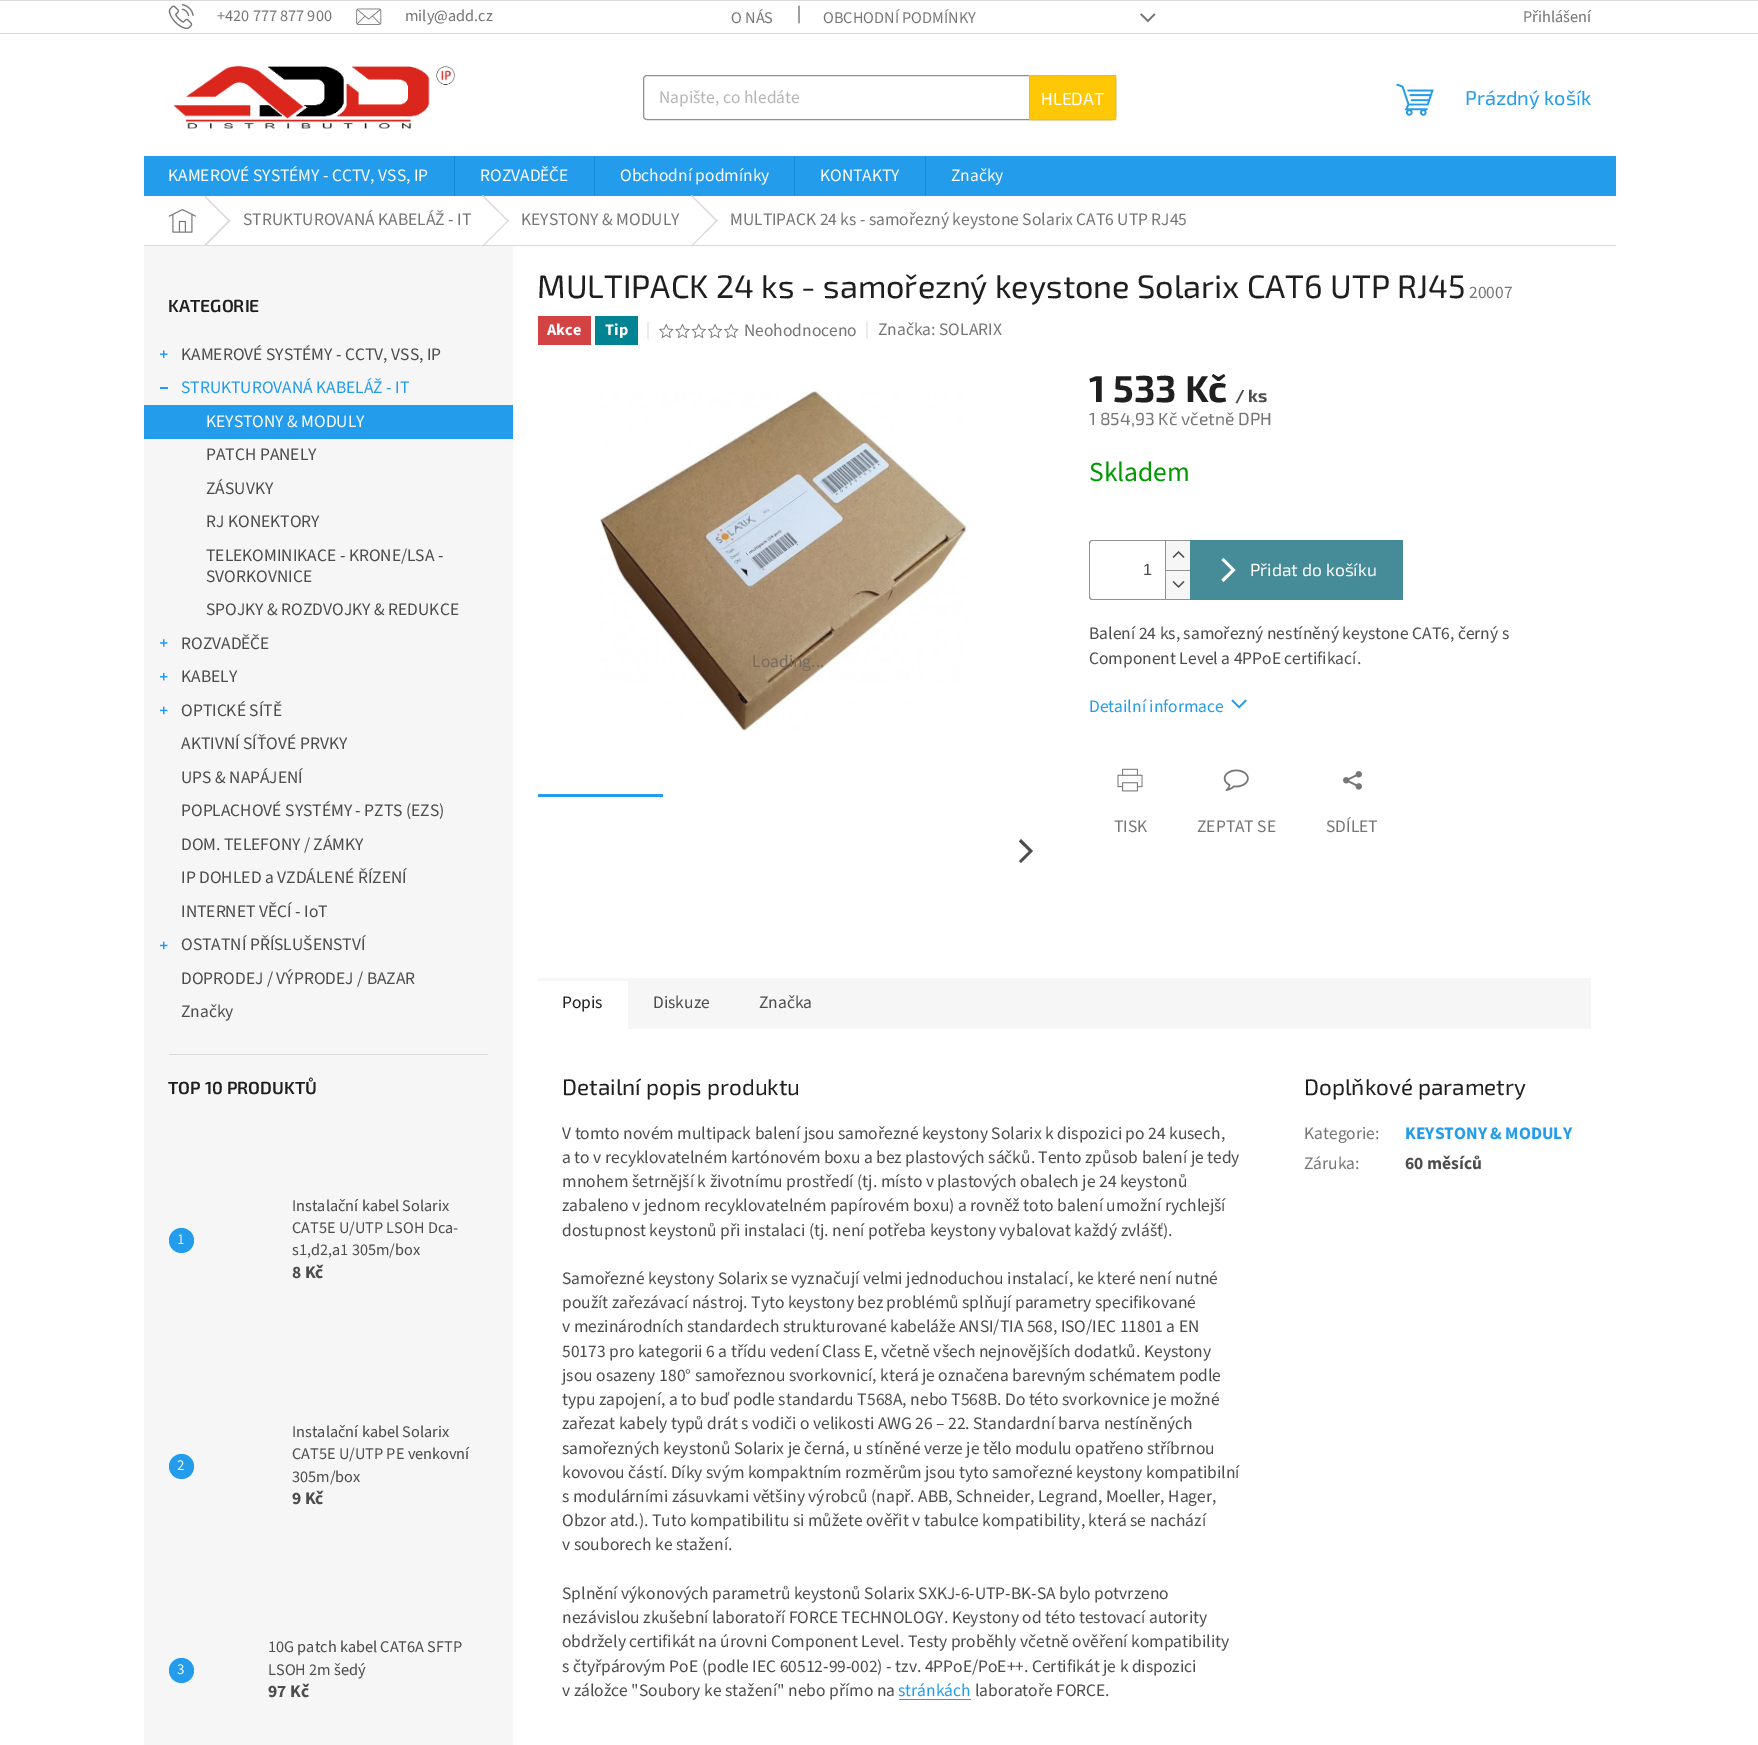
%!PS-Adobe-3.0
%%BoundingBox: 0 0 1758 1745
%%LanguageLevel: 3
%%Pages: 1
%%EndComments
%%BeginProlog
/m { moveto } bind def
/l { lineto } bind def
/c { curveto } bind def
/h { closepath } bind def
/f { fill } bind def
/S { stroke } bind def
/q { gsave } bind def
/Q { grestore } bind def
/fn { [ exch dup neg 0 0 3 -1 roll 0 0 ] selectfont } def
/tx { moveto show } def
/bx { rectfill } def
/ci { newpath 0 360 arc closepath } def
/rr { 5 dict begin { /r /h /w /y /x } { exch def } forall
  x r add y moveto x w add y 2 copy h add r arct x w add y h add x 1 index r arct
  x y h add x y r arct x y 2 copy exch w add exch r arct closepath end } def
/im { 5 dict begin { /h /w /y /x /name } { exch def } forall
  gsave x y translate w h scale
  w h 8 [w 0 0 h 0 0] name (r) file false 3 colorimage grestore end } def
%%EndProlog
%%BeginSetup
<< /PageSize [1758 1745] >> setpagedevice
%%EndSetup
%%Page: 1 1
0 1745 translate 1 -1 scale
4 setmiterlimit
1 setgray
0 0 1758 1745 bx
0.855 setgray
0 0 1758 1 bx
0 33 1758 1 bx
(image0.raw) 168 4 26 26 im
/SourceSans3-Regular 16.25 fn
0.463 setgray
(+420 777 877 900) 217 21 tx
(image1.raw) 356 8 26 17 im
(mily@add.cz) 405 21 tx
(O NÁS) 731 23 tx
/SourceSans3-Regular 17.5 fn
0.302 setgray
(|) 797 19 tx
/SourceSans3-Regular 16.25 fn
0.463 setgray
(OBCHODNÍ PODMÍNKY) 823 23 tx
(image2.raw) 1140 13 16 10 im
(Přihlášení) 1523 22 tx
(image3.raw) 173 66 282 63 im
0.569 setgray
643.5 75.5 472 44 3.5 rr S
/SourceSans3-Regular 17.5 fn
0.714 setgray
(Napište, co hledáte) 659 103 tx
1 0.784 0.027 setrgbcolor
1029.5 75.5 m 1115.5 75.5 l 1115.5 119.5 l 1029.5 119.5 l h q f Q
1 0.733 0 setrgbcolor
S
/Exo2-Regular 17.5 fn
1 setgray
(HLEDAT) 1041 105 tx
(image4.raw) 1396 83 38 33 im
/Exo2-Regular 20 fn
0.137 0.612 0.922 setrgbcolor
(Prázdný košík) 1465 105 tx
144 156 1472 40 bx
/SourceSans3-Regular 17.5 fn
1 setgray
(KAMEROVÉ SYSTÉMY - CCTV, VSS, IP) 168 181 tx
0.078 0.537 0.843 setrgbcolor
454 156 1 40 bx
1 setgray
(ROZVADĚČE) 480 181 tx
0.078 0.537 0.843 setrgbcolor
594 156 1 40 bx
1 setgray
(Obchodní podmínky) 620 181 tx
0.078 0.537 0.843 setrgbcolor
794 156 1 40 bx
1 setgray
(KONTAKTY) 820 181 tx
0.078 0.537 0.843 setrgbcolor
925 156 1 40 bx
1 setgray
(Značky) 951 181 tx
0.855 setgray
144 245 1472 1 bx
(image5.raw) 168 209 28 24 im
204.5 197 m 205.5 196 l 230.5 221 l 229.5 222 l h f
229.5 219.5 m 230.5 220.5 l 205.5 246 l 204.5 245 l h f
0.463 setgray
(STRUKTUROVANÁ KABELÁŽ - IT) 243 225 tx
0.855 setgray
482 196 m 483 195 l 509 221 l 508.5 222 l h f
0.965 setgray
144 246 369 1499 bx
0.855 setgray
508.5 219.5 m 509 220.5 l 483 246.5 l 482 246 l h f
0.463 setgray
(KEYSTONY & MODULY) 521 225 tx
0.855 setgray
691 196 m 691.5 195 l 718 221 l 717 222 l h f
717 219.5 m 718 220.5 l 691.5 246.5 l 691 246 l h f
0.463 setgray
(MULTIPACK 24 ks - samořezný keystone Solarix CAT6 UTP RJ45) 730 225 tx
0.855 setgray
169 1054 319 1 bx
/Exo2-SemiBold 17.5 fn
0.122 setgray
(KATEGORIE) 168 312 tx
(image6.raw) 160 350 8 8 im
/SourceSans3-Regular 17.5 fn
0.302 setgray
(KAMEROVÉ SYSTÉMY - CCTV, VSS, IP) 181 360 tx
0.137 0.612 0.922 setrgbcolor
160 387 8 2 bx
(STRUKTUROVANÁ KABELÁŽ - IT) 181 393 tx
144 405 369 34 bx
1 setgray
(KEYSTONY & MODULY) 206 427 tx
0.302 setgray
(PATCH PANELY) 206 460 tx
(ZÁSUVKY) 206 494 tx
(RJ KONEKTORY) 206 527 tx
(TELEKOMINIKACE - KRONE/LSA -) 206 561 tx
(SVORKOVNICE) 206 582 tx
(SPOJKY & ROZDVOJKY & REDUKCE) 206 615 tx
(image7.raw) 160 639 8 8 im
(ROZVADĚČE) 181 649 tx
(image8.raw) 160 672 8 9 im
(KABELY) 181 682 tx
(image9.raw) 160 706 8 9 im
(OPTICKÉ SÍTĚ) 181 716 tx
(AKTIVNÍ SÍŤOVÉ PRVKY) 181 749 tx
(UPS & NAPÁJENÍ) 181 783 tx
(POPLACHOVÉ SYSTÉMY - PZTS \(EZS\)) 181 816 tx
(DOM. TELEFONY / ZÁMKY) 181 850 tx
(IP DOHLED a VZDÁLENÉ ŘÍZENÍ) 181 883 tx
(INTERNET VĚCÍ - IoT) 181 917 tx
(image9.raw) 160 941 8 9 im
(OSTATNÍ PŘÍSLUŠENSTVÍ) 181 950 tx
(DOPRODEJ / VÝPRODEJ / BAZAR) 181 984 tx
(Značky) 181 1017 tx
/Exo2-SemiBold 17.5 fn
0.122 setgray
(TOP 10 PRODUKTŮ) 168 1094 tx
0.137 0.612 0.922 setrgbcolor
181.5 1240.5 12.5 ci f
/SourceSans3-Regular 15 fn
1 setgray
(1) 177 1244 tx
/SourceSans3-Regular 16.25 fn
0.302 setgray
(Instalační kabel Solarix) 292 1211 tx
(CAT5E U/UTP LSOH Dca-) 292 1233 tx
(s1,d2,a1 305m/box) 292 1255 tx
/SourceSans3-Bold 17.5 fn
(8 Kč) 292 1278 tx
0.137 0.612 0.922 setrgbcolor
181.5 1466.5 12.5 ci f
/SourceSans3-Regular 15 fn
1 setgray
(2) 177 1470 tx
/SourceSans3-Regular 16.25 fn
0.302 setgray
(Instalační kabel Solarix) 292 1437 tx
(CAT5E U/UTP PE venkovní) 292 1459 tx
(305m/box) 292 1482 tx
/SourceSans3-Bold 17.5 fn
(9 Kč) 292 1504 tx
0.137 0.612 0.922 setrgbcolor
181.5 1670.5 12.5 ci f
/SourceSans3-Regular 15 fn
1 setgray
(3) 177 1674 tx
/SourceSans3-Regular 16.25 fn
0.302 setgray
(10G patch kabel CAT6A SFTP) 268 1652 tx
(LSOH 2m šedý) 268 1675 tx
/SourceSans3-Bold 17.5 fn
(97 Kč) 268 1697 tx
/Exo2-Regular 32.5 fn
0.122 setgray
(MULTIPACK 24 ks - samořezný keystone Solarix CAT6 UTP RJ45) 537 298 tx
/SourceSans3-Regular 17.5 fn
0.463 setgray
(20007) 1469 298 tx
0.827 0.263 0.263 setrgbcolor
538 316 53 29 bx
/SourceSans3-Bold 16.25 fn
1 setgray
(Akce) 547 335 tx
0 0.514 0.573 setrgbcolor
595 316 43 29 bx
1 setgray
(Tip) 605 335 tx
/SourceSans3-Regular 17.5 fn
0.855 setgray
(|) 646 335 tx
(image10.raw) 658 323 16 16 im
(image11.raw) 675 323 15 16 im
(image12.raw) 691 323 16 16 im
(image13.raw) 707 323 16 16 im
(image10.raw) 723 323 16 16 im
0.463 setgray
(Neohodnoceno) 744 336 tx
0.855 setgray
(|) 865 335 tx
0.463 setgray
(Značka: SOLARIX) 878 335 tx
(image14.raw) 600 390 368 341 im
0.471 0.42 0.361 setrgbcolor
(Loading...) 752 667 tx
0.137 0.612 0.922 setrgbcolor
538 794 125 3 bx
0.302 setgray
1021 863 m 1019 861 l 1029 851 l 1019 841.5 l 1021 839 l 1033 851 l h f
/Exo2-Bold 37.5 fn
0.122 setgray
(1 533 Kč) 1089 402 tx
/Exo2-Bold 17.5 fn
0.302 setgray
(/ ks) 1235 402 tx
/Exo2-Regular 17.5 fn
0.463 setgray
(1 854,93 Kč včetně DPH) 1089 425 tx
/SourceSans3-Regular 27.5 fn
0 0.6 0.004 setrgbcolor
(Skladem) 1089 481 tx
0.569 setgray
1092 540 m 1190 540 l 1190 600 l 1092 600 l 1090 600 1089 598 1089 596 c 1089 544 l 1089 542 1090 540 1092 540 c h 1092 541 m 1190 541 l 1190 599 l 1092 599 l 1091 599 1090 598 1090 596 c 1090 544 l 1090 542 1091 541 1092 541 c h eofill
/LiberationSans-Regular 16.25 fn
0.302 setgray
(1) 1143 575 tx
0.965 setgray
1166 541 24 29 bx
0.569 setgray
1165 541 1 29 bx
(image15.raw) 1172 551 13 7 im
0.965 setgray
1166 571 24 28 bx
0.569 setgray
1165 570 25 1 bx
1165 570 1 29 bx
(image16.raw) 1172 581 13 7 im
0.275 0.549 0.596 setrgbcolor
1190 540 213 60 bx
1 setgray
1223.5 582 m 1221.5 579.5 l 1231.5 570 l 1221.5 560 l 1223.5 558 l 1235.5 570 l h f
/Exo2-Regular 17.5 fn
(Přidat do košíku) 1250 576 tx
/SourceSans3-Regular 17.5 fn
0.302 setgray
(Balení 24 ks, samořezný nestíněný keystone CAT6, černý s) 1089 639 tx
(Component Level a 4PPoE certifikací.) 1089 664 tx
0.137 0.612 0.922 setrgbcolor
(Detailní informace) 1089 712 tx
(image17.raw) 1231 699 16 10 im
(image18.raw) 1117 768 26 24 im
0.463 setgray
(TISK) 1114 832 tx
(image19.raw) 1223 769 26 22 im
(ZEPTAT SE) 1197 832 tx
(image20.raw) 1343 771 19 19 im
(SDÍLET) 1326 832 tx
0.965 setgray
628 978 963 51 bx
538 978 90 3 bx
0.122 setgray
(Popis) 562 1008 tx
0.302 setgray
(Diskuze) 653 1008 tx
(Značka) 759 1008 tx
/Exo2-Regular 22.5 fn
0.122 setgray
(Detailní popis produktu) 562 1095 tx
/SourceSans3-Regular 17.5 fn
0.302 setgray
(V tomto novém multipack balení jsou samořezné keystony Solarix k dispozici po 24 kusech,) 562 1139 tx
(a to v recyklovatelném kartónovém boxu a bez plastových sáčků. Tento způsob balení je tedy) 562 1163 tx
(mnohem šetrnější k životnímu prostředí \(tj. místo v plastových obalech je 24 keystonů) 562 1187 tx
(zabaleno v jednom recyklovatelném papírovém boxu\) a rovněž toto balení umožní rychlejší) 562 1211 tx
(dostupnost keystonů při instalaci \(tj. není potřeba keystony vybalovat každý zvlášť\).) 562 1236 tx
(Samořezné keystony Solarix se vyznačují velmi jednoduchou instalací, ke které není nutné) 562 1284 tx
(použít zařezávací nástroj. Tyto keystony bez problémů splňují parametry specifikované) 562 1308 tx
(v mezinárodních standardech strukturované kabeláže ANSI/TIA 568, ISO/IEC 11801 a EN) 562 1332 tx
(50173 pro kategorii 6 a třídu vedení Class E, včetně všech nejnovějších dodatků. Keystony) 562 1357 tx
(jsou osazeny 180° samořeznou svorkovnicí, která je označena barevným schématem podle) 562 1381 tx
(typu zapojení, a to buď podle standardu T568A, nebo T568B. Do této svorkovnice je možné) 562 1405 tx
(zařezat kabely typů drát s vodiči o velikosti AWG 26 – 22. Standardní barva nestíněných) 562 1429 tx
(samořezných keystonů Solarix je černá, u stíněné verze je tělo modulu opatřeno stříbrnou) 562 1454 tx
(kovovou částí. Díky svým kompaktním rozměrům jsou tyto samořezné keystony kompatibilní) 562 1478 tx
(s modulárními zásuvkami většiny výrobců \(např. ABB, Schneider, Legrand, Moeller, Hager,) 562 1502 tx
(Obzor atd.\). Tuto kompatibilitu si můžete ověřit v tabulce kompatibility, která se nachází) 562 1526 tx
(v souborech ke stažení.) 562 1550 tx
(Splnění výkonových parametrů keystonů Solarix SXKJ-6-UTP-BK-SA bylo potvrzeno) 562 1599 tx
(nezávislou zkušební laboratoří FORCE TECHNOLOGY. Keystony od této testovací autority) 562 1623 tx
(obdržely certifikát na úrovni Component Level. Testy proběhly včetně ověření kompatibility) 562 1647 tx
(s čtyřpárovým PoE \(podle IEC 60512-99-002\) - tzv. 4PPoE/PoE++. Certifikát je k dispozici) 562 1672 tx
(v záložce "Soubory ke stažení" nebo přímo na) 562 1696 tx
0.137 0.612 0.922 setrgbcolor
(stránkách) 898 1696 tx
899 1699 72 1 bx
0.302 setgray
(laboratoře FORCE.) 975 1696 tx
/Exo2-Regular 22.5 fn
0.122 setgray
(Doplňkové parametry) 1304 1095 tx
/SourceSans3-Regular 17.5 fn
0.463 setgray
(Kategorie:) 1304 1139 tx
/SourceSans3-Bold 17.5 fn
0.137 0.612 0.922 setrgbcolor
(KEYSTONY & MODULY) 1405 1139 tx
/SourceSans3-Regular 17.5 fn
0.463 setgray
(Záruka:) 1304 1169 tx
/SourceSans3-Bold 17.5 fn
0.302 setgray
(60 měsíců) 1405 1169 tx
showpage
%%EOF
